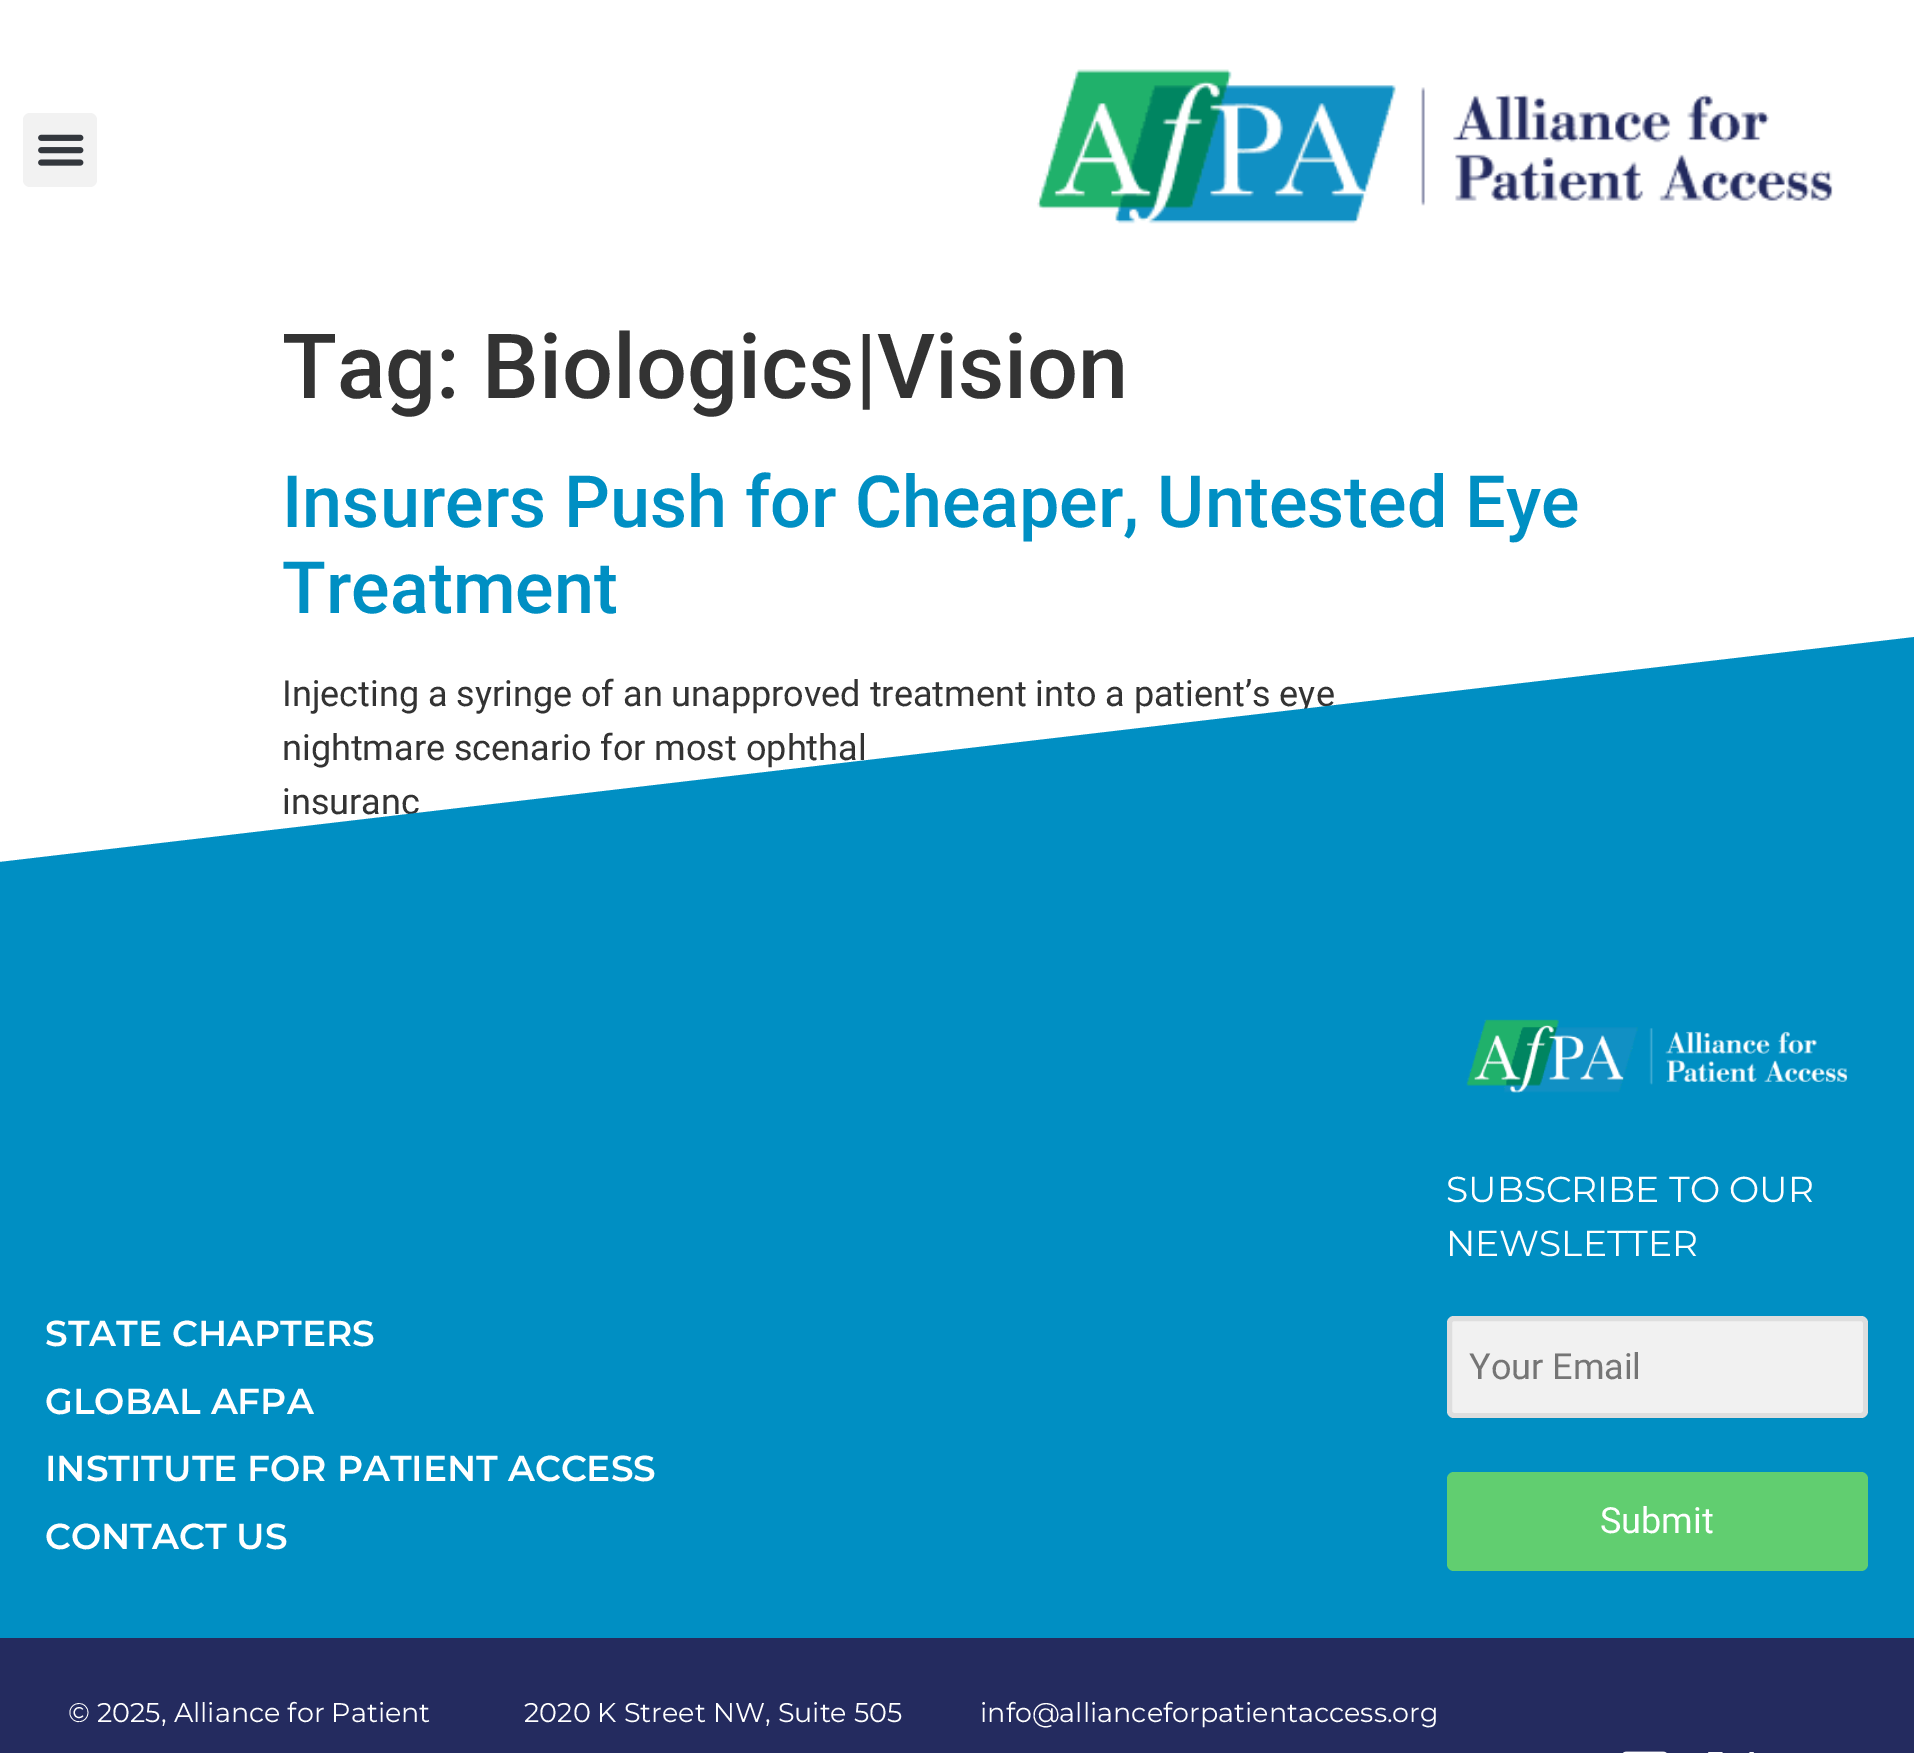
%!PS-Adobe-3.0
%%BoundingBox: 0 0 1914 1753
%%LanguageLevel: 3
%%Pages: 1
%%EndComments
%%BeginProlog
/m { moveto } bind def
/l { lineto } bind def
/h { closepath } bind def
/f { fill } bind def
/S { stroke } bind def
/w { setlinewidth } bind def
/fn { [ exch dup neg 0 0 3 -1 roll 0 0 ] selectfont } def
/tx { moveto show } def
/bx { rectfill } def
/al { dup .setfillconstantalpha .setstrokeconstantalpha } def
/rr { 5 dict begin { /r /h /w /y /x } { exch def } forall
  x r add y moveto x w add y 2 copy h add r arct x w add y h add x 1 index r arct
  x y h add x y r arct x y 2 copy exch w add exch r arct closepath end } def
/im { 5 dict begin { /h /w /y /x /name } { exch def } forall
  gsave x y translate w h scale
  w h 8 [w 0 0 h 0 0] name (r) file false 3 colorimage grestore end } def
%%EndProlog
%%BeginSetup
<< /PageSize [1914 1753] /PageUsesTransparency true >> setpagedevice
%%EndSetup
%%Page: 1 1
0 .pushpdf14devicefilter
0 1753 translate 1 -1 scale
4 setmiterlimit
1 setgray
0 0 1914 1753 bx
0.949 setgray
23 113 74 74 7 rr f
(image0.raw) 38 134 46 32 im
(image1.raw) 1037 69 796 155 im
/Roboto-Medium 90 fn
0.2 setgray
(Tag: Biologics|Vision) 282 398 tx
/Roboto-Medium 72 fn
0 0.561 0.765 setrgbcolor
(Insurers Push for Cheaper, Untested Eye) 282 527 tx
(Treatment) 282 613 tx
/Roboto-Regular 36 fn
0.2 setgray
(Injecting a syringe of an unapproved treatment into a patient’s eye) 282 706 tx
(nightmare scenario for most ophthal) 282 760 tx
(insuranc) 282 814 tx
0 0.561 0.765 setrgbcolor
0 862 m 0 1638 l 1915 1638 l 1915 637 l h f
/Montserrat-SemiBold 36 fn
1 setgray
(STATE CHAPTERS) 45 1346 tx
(GLOBAL AFPA) 45 1414 tx
(INSTITUTE FOR PATIENT ACCESS) 45 1481 tx
(CONTACT US) 45 1549 tx
(image2.raw) 1466 1019 382 74 im
/Montserrat-Regular 36 fn
(SUBSCRIBE TO OUR) 1446 1202 tx
(NEWSLETTER) 1446 1256 tx
0.945 setgray
1447 1316 421 102 7 rr f
0.1 al
0.2 setgray
5 w
1449.5 1318.5 416 97 4.5 rr S
/Roboto-Regular 36 fn
1 al
0.459 setgray
(Your Email) 1469 1379 tx
0.38 0.808 0.439 setrgbcolor
1447 1472 421 99 7 rr f
1 setgray
(Submit) 1600 1533 tx
0.141 0.169 0.373 setrgbcolor
0 1638 1914 115 bx
/Montserrat-Regular 27 fn
1 setgray
(© 2025, Alliance for Patient) 68 1722 tx
(2020 K Street NW, Suite 505) 524 1722 tx
(info@allianceforpatientaccess.org) 980 1722 tx
(image3.raw) 1623 1751 44 2 im
1736 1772 m 1754 1752 l 1750 1752 l 1735 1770 l 1722 1752 l 1708 1752 l 1727 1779 l 1708 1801 l 1712 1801 l 1729 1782 l 1742 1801 l 1756 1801 l h 1731 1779 m 1714 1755 l 1720 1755 l 1750 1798 l 1744 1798 l h f
.poppdf14devicefilter showpage
%%EOF
